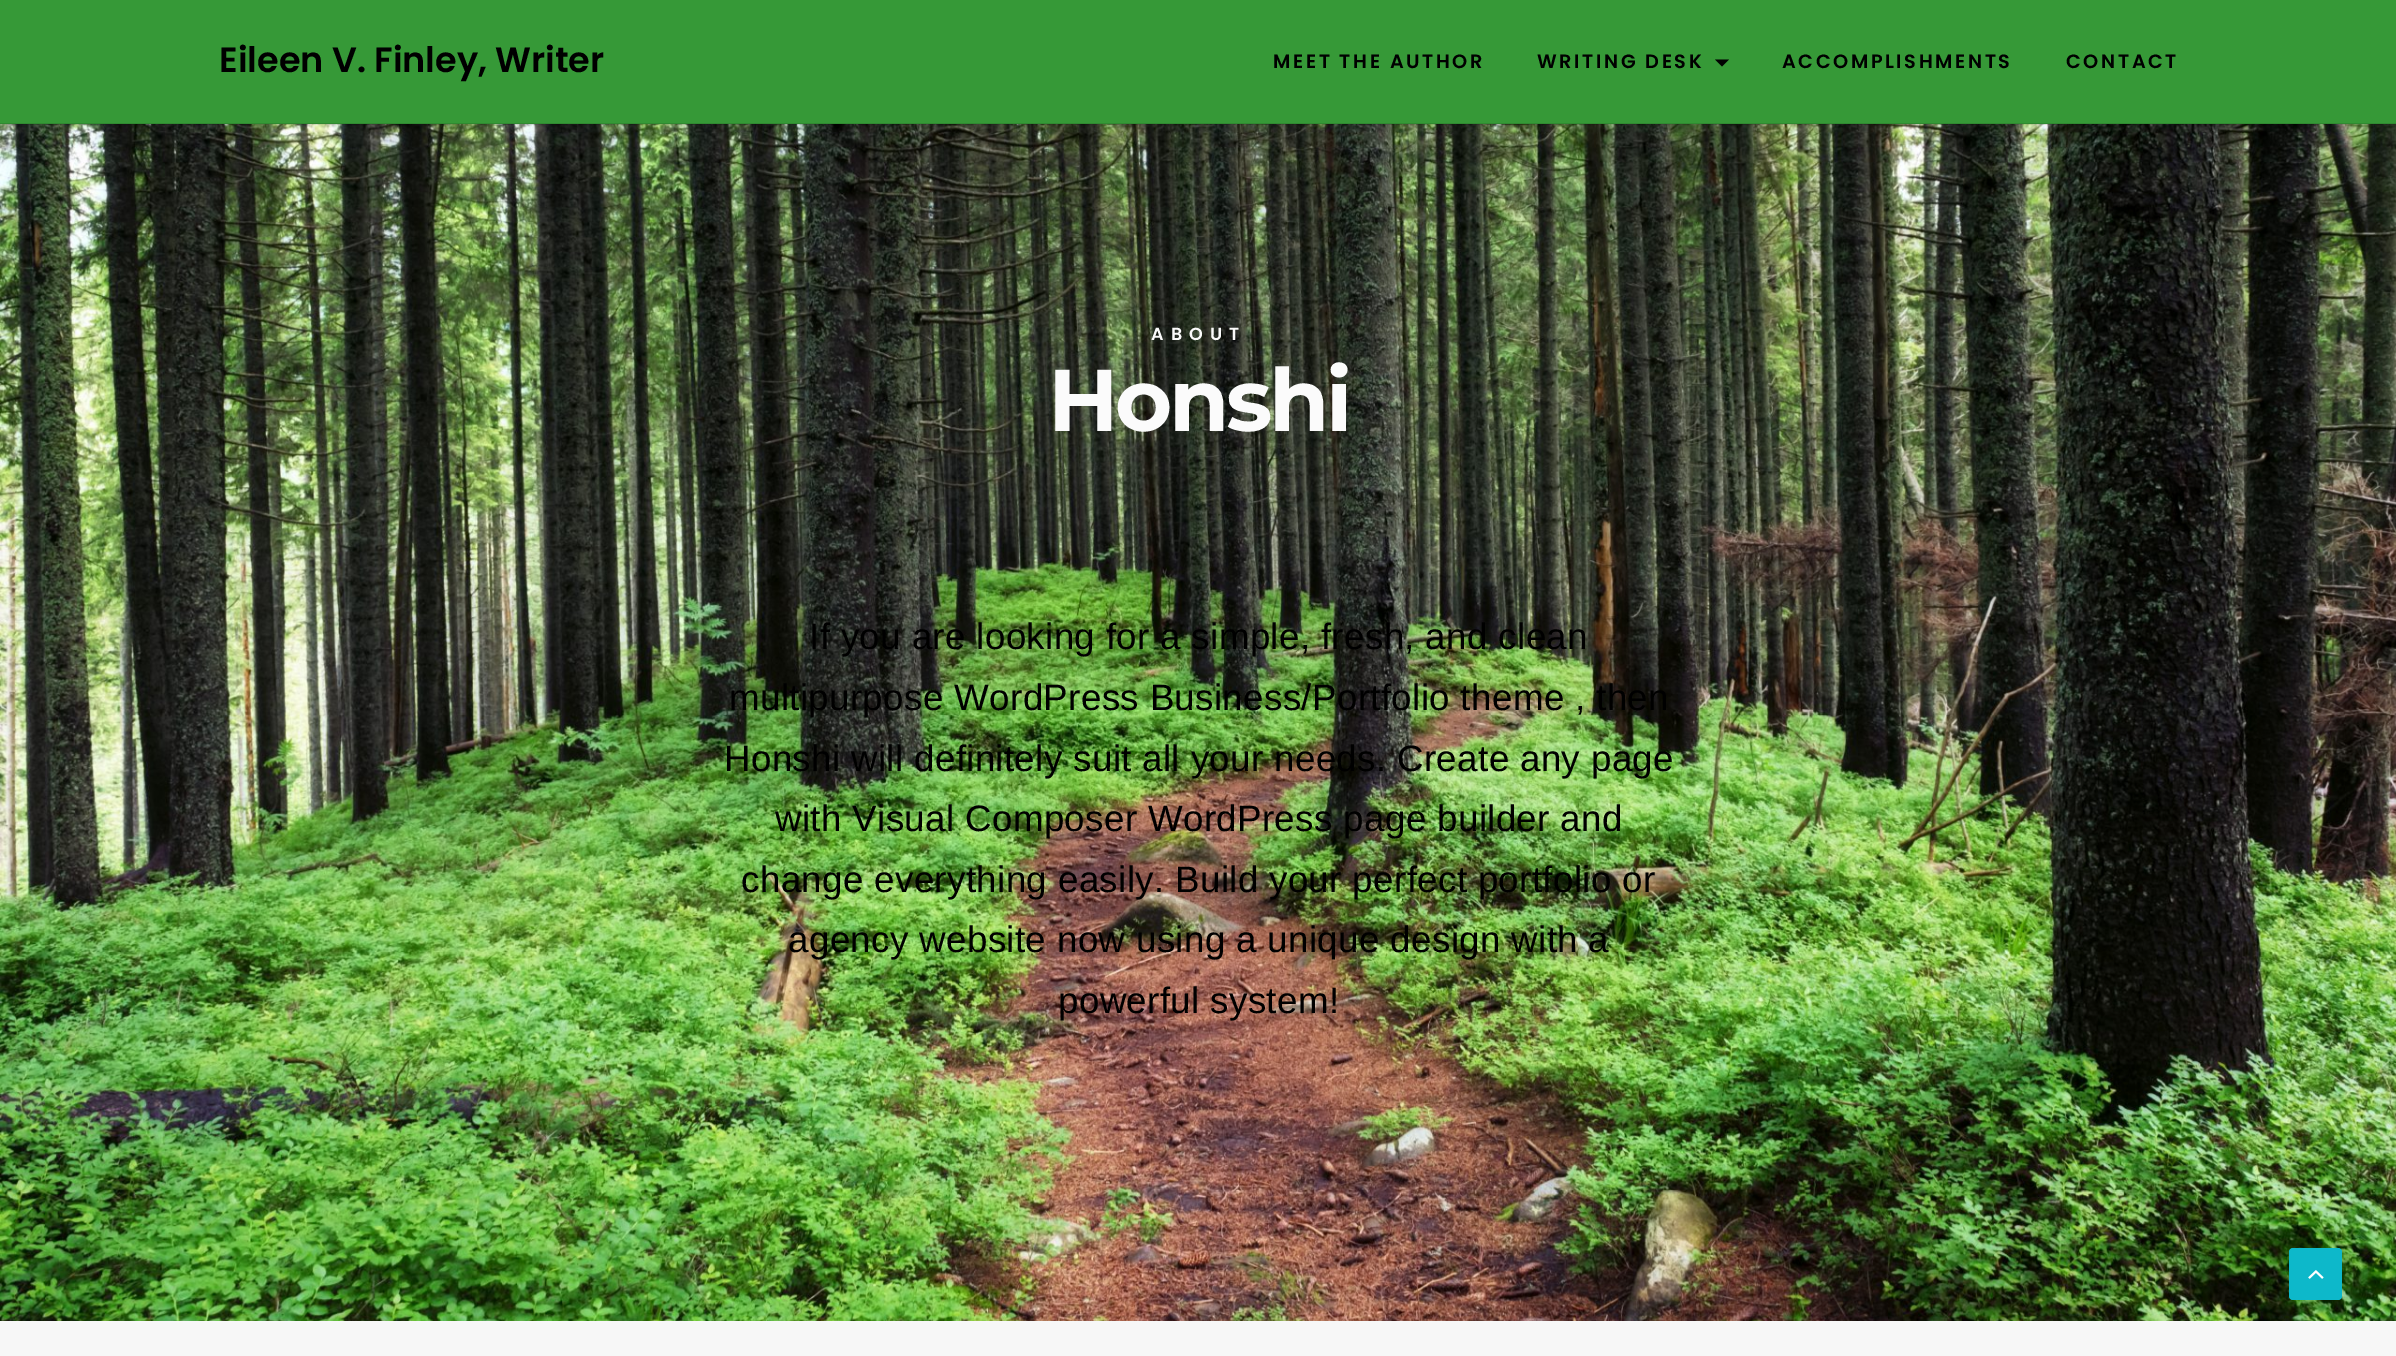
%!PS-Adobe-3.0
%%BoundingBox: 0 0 2396 1356
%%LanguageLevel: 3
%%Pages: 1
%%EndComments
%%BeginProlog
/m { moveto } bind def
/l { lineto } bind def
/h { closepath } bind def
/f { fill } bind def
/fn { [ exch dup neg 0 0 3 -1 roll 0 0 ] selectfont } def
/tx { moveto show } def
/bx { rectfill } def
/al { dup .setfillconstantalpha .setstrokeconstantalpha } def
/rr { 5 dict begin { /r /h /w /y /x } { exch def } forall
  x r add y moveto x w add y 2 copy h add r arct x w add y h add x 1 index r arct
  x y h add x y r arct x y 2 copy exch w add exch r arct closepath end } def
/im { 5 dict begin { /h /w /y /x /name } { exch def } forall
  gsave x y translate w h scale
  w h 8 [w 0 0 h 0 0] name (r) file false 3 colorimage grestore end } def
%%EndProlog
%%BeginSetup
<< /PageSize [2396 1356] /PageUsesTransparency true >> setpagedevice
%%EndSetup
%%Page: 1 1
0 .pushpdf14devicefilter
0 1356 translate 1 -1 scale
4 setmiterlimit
1 setgray
0 0 2396 1356 bx
(image0.raw) 0 124 2396 1197 im
0.212 0.6 0.216 setrgbcolor
0 0 2396 124 bx
0.1 al
0 setgray
0 123 2396 2 bx
/Poppins-SemiBold 35 fn
1 al
(Eileen V. Finley, Writer) 219 72 tx
/Poppins-SemiBold 19.25 fn
1273 68 m 2.6 0 (MEET THE AUTHOR) ashow
1537 68 m 2.6 0 (WRITING DESK) ashow
0.004 0.008 0.004 setrgbcolor
1715 59.5 m 1729 59.5 l 1722 66.5 l h f
0 setgray
1782 68 m 2.6 0 (ACCOMPLISHMENTS) ashow
2066 68 m 2.6 0 (CONTACT) ashow
/Poppins-SemiBold 17.5 fn
0.984 setgray
1151 340 m 7 0 (ABOUT) ashow
/Montserrat-Bold 87.5 fn
1048 431 m -3.5 0 (Honshi) ashow
/LiberationSans-Regular 36.75 fn
0 setgray
809 649 m 0.35 0 (If you are looking for a simple, fresh, and clean) ashow
729 710 m 0.35 0 (multipurpose WordPress Business/Portfolio theme , then) ashow
724 771 m 0.35 0 (Honshi will definitely suit all your needs. Create any page) ashow
775 831 m 0.35 0 (with Visual Composer WordPress page builder and) ashow
741 892 m 0.35 0 (change everything easily. Build your perfect portfolio or) ashow
788 952 m 0.35 0 (agency website now using a unique design with a) ashow
1058 1013 m 0.35 0 (powerful system!) ashow
0.051 0.722 0.792 setrgbcolor
2289 1248 53 52 4 rr f
(image1.raw) 2308 1270 16 9 im
0.969 setgray
0 1321 2396 35 bx
.poppdf14devicefilter showpage
%%EOF
